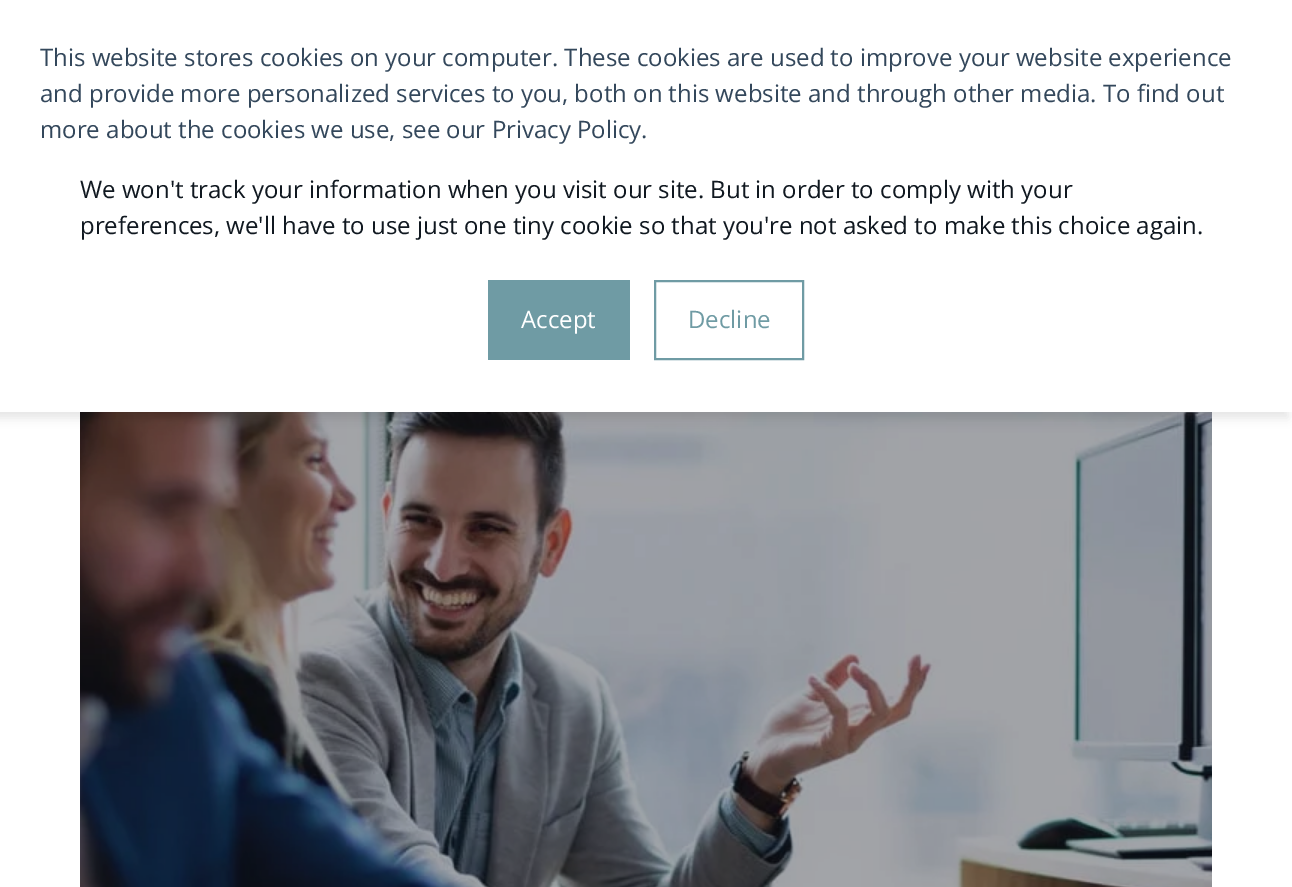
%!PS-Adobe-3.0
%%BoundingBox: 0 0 1292 887
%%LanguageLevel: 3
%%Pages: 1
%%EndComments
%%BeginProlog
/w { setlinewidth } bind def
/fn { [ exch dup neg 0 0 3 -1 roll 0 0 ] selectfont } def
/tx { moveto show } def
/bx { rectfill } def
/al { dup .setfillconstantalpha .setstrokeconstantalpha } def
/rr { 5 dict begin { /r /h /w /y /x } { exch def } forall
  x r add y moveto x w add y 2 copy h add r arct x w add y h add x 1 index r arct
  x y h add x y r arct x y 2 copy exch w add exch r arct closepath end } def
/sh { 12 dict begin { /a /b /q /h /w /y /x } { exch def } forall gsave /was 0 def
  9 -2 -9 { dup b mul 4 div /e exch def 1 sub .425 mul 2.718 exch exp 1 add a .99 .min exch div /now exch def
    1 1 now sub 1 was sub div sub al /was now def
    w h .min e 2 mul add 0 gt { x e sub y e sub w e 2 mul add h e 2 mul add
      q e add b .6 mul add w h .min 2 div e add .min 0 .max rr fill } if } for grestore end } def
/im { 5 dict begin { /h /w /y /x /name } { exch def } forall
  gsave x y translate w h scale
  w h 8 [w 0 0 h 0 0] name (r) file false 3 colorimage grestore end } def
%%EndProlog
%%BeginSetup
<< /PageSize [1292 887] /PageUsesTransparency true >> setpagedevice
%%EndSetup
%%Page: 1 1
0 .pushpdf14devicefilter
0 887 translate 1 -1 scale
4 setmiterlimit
1 setgray
0 0 1292 887 bx
(image0.raw) 80 412 1132 475 im
0 setgray
-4 6 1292 412 0 5 0.1 sh
1 setgray
0 0 1292 412 bx
/OpenSans-Regular 24 fn
0.2 0.278 0.357 setrgbcolor
(This website stores cookies on your computer. These cookies are used to improve your website experience) 40 66 tx
(and provide more personalized services to you, both on this website and through other media. To find out) 40 102 tx
(more about the cookies we use, see our Privacy Policy.) 40 138 tx
0.063 0.094 0.125 setrgbcolor
(We won't track your information when you visit our site. But in order to comply with your) 80 198 tx
(preferences, we'll have to use just one tiny cookie so that you're not asked to make this choice again.) 80 234 tx
0.435 0.608 0.643 setrgbcolor
488 280 142 80 bx
1 setgray
(Accept) 521 328 tx
0.435 0.608 0.643 setrgbcolor
2 w
655 281 148 78 rectstroke
(Decline) 688 328 tx
.poppdf14devicefilter showpage
%%EOF
